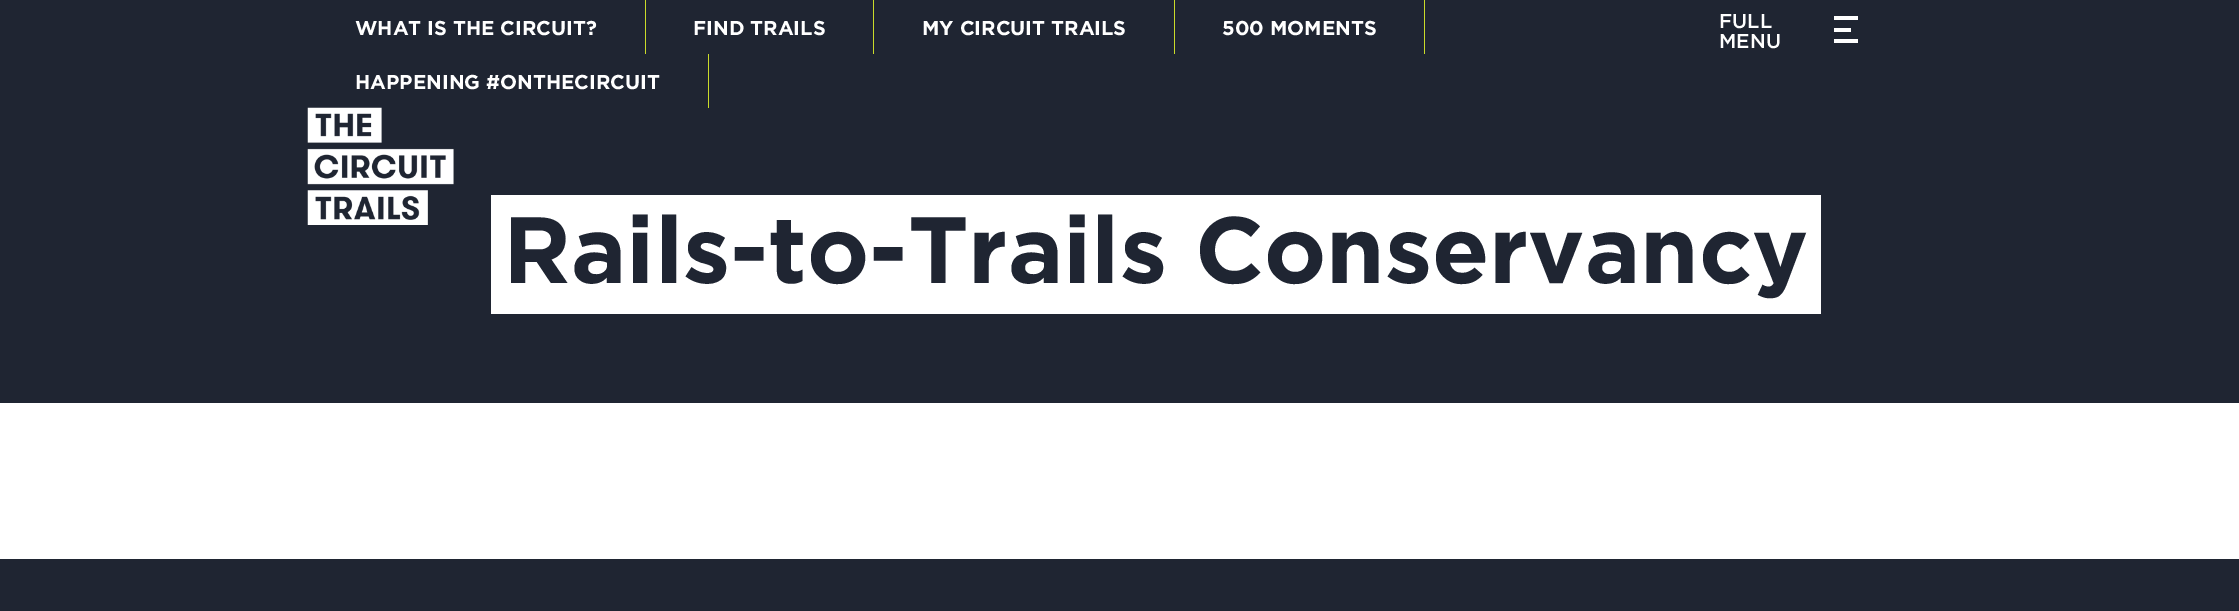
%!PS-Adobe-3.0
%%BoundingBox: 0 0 2239 611
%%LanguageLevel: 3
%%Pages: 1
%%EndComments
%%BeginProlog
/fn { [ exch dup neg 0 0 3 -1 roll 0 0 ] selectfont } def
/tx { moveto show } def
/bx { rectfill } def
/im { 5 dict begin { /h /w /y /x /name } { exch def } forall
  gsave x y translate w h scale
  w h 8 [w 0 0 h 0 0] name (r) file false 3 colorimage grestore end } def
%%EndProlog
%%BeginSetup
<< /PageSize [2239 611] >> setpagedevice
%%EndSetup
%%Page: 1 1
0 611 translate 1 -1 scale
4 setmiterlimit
0.122 0.145 0.196 setrgbcolor
0 0 2239 611 bx
0.792 0.859 0.165 setrgbcolor
645 0 1 54 bx
/Gotham-Bold 20 fn
1 setgray
(WHAT IS THE CIRCUIT?) 355 35 tx
0.792 0.859 0.165 setrgbcolor
873 0 1 54 bx
1 setgray
(FIND TRAILS) 693 35 tx
0.792 0.859 0.165 setrgbcolor
1174 0 1 54 bx
1 setgray
(MY CIRCUIT TRAILS) 922 35 tx
0.792 0.859 0.165 setrgbcolor
1424 0 1 54 bx
1 setgray
(500 MOMENTS) 1222 35 tx
0.792 0.859 0.165 setrgbcolor
708 54 1 54 bx
1 setgray
(HAPPENING #ONTHECIRCUIT) 355 89 tx
/Gotham-Medium 20 fn
(FULL) 1719 28 tx
(MENU) 1719 48 tx
1834 16 24 4 bx
1834 28 17 4 bx
1834 39 24 4 bx
(image0.raw) 307 107 147 118 im
491 195 1330 119 bx
/Gotham-Bold 93.75 fn
0.122 0.145 0.196 setrgbcolor
(Rails-to-Trails Conservancy) 503 283 tx
1 setgray
0 403 2239 156 bx
showpage
%%EOF
